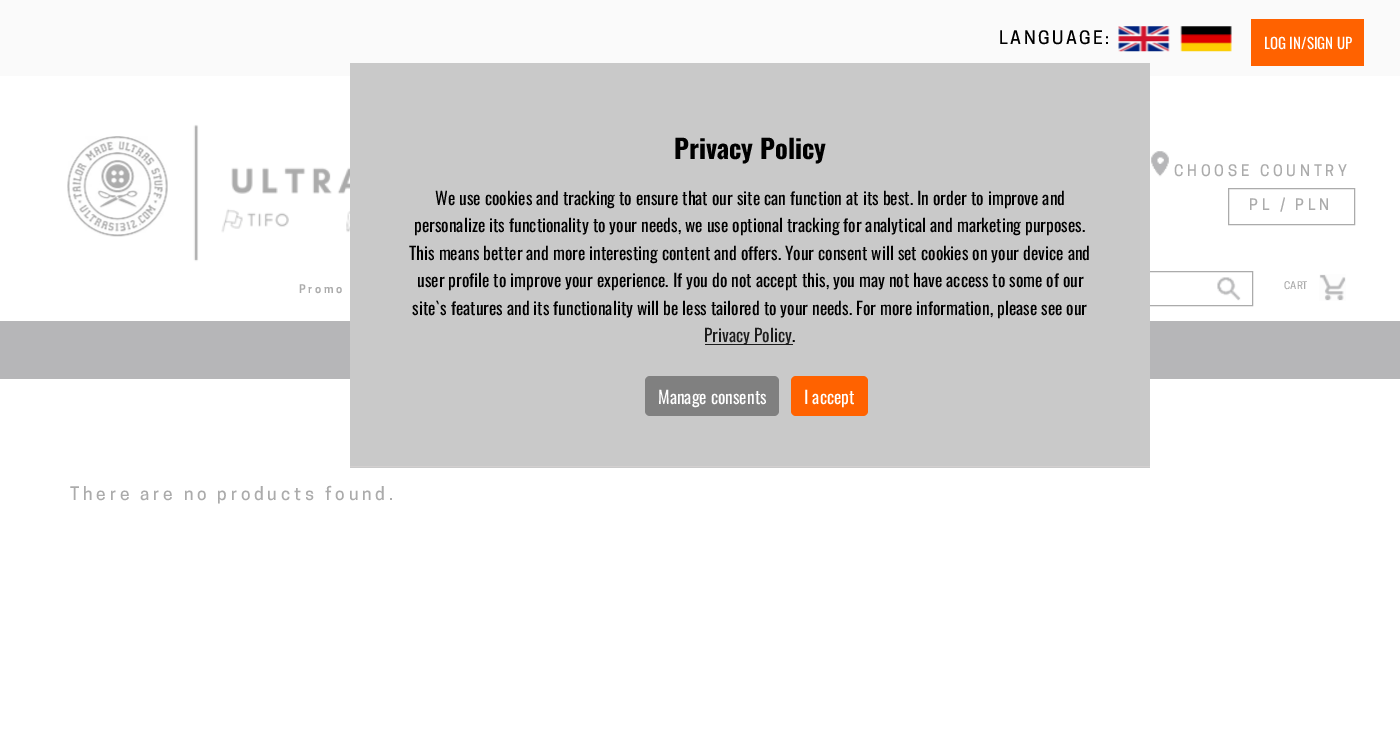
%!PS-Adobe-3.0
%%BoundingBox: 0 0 1400 739
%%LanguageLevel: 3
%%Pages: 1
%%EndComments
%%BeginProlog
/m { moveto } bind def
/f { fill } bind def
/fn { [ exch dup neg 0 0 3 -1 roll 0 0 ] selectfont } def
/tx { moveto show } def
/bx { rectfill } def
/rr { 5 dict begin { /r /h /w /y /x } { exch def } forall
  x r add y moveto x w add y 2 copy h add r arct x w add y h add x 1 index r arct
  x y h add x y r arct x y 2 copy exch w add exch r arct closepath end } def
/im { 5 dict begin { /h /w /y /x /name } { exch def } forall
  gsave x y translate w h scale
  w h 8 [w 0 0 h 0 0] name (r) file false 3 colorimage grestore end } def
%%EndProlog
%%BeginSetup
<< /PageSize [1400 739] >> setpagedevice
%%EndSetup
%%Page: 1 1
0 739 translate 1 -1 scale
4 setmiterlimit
1 setgray
0 0 1400 739 bx
0.98 setgray
0 0 1400 76 bx
/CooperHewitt-Medium 17.5 fn
0 setgray
999 44 m 2.5 0 (LANGUAGE:) ashow
(image0.raw) 1118 26 52 26 im
(image1.raw) 1180 26 52 26 im
1 0.384 0 setrgbcolor
1251 19 113 47 bx
/Oswald-Regular 15 fn
1 setgray
(LOG IN/SIGN UP) 1264 49 tx
0.671 setgray
995.5 271.5 257 34 rectstroke
0.714 0.714 0.722 setrgbcolor
0 321 1400 58 bx
0.788 setgray
350 63 800 405 bx
0.827 0.816 0.816 setrgbcolor
350 466 800 1 bx
/Oswald-Bold 26.25 fn
0 setgray
(Privacy Policy) 674 159 tx
/Oswald-Regular 17.5 fn
(We use cookies and tracking to ensure that our site can function at its best. In order to improve and) 435 205 tx
(personalize its functionality to your needs, we use optional tracking for analytical and marketing purposes.) 414 232 tx
(This means better and more interesting content and offers. Your consent will set cookies on your device and) 409 260 tx
(user profile to improve your experience. If you do not accept this, you may not have access to some of our) 417 287 tx
(site`s features and its functionality will be less tailored to your needs. For more information, please see our) 412 315 tx
0.11 setgray
705 344 88 1 bx
(Privacy Policy) 704 342 tx
0 setgray
(.) 792 342 tx
0.502 setgray
645 376 134 40 5 rr f
1 setgray
(Manage consents) 658 404 tx
1 0.384 0 setrgbcolor
791 376 77 40 5 rr f
1 setgray
(I accept) 804 404 tx
(image2.raw) 193 124 157 138 im
(image3.raw) 67 136 101 101 im
(image4.raw) 1151 151 18 26 im
/CooperHewitt-Medium 15 fn
0.671 setgray
1174 176 m 3.75 0 (CHOOSE COUNTRY) ashow
1228.5 188.5 126 36 rectstroke
1249 210 m 3.75 0 (PL / PLN) ashow
/CooperHewitt-SemiBold 11.25 fn
299 293 m 2.5 0 (Promo) ashow
(image5.raw) 1213 273 32 32 im
/CooperHewitt-Medium 10 fn
(CART) 1284 289 tx
(image6.raw) 1319 274 27 27 im
/CooperHewitt-Medium 17.5 fn
70 500 m 3.75 0 (There are no products found.) ashow
showpage
%%EOF
